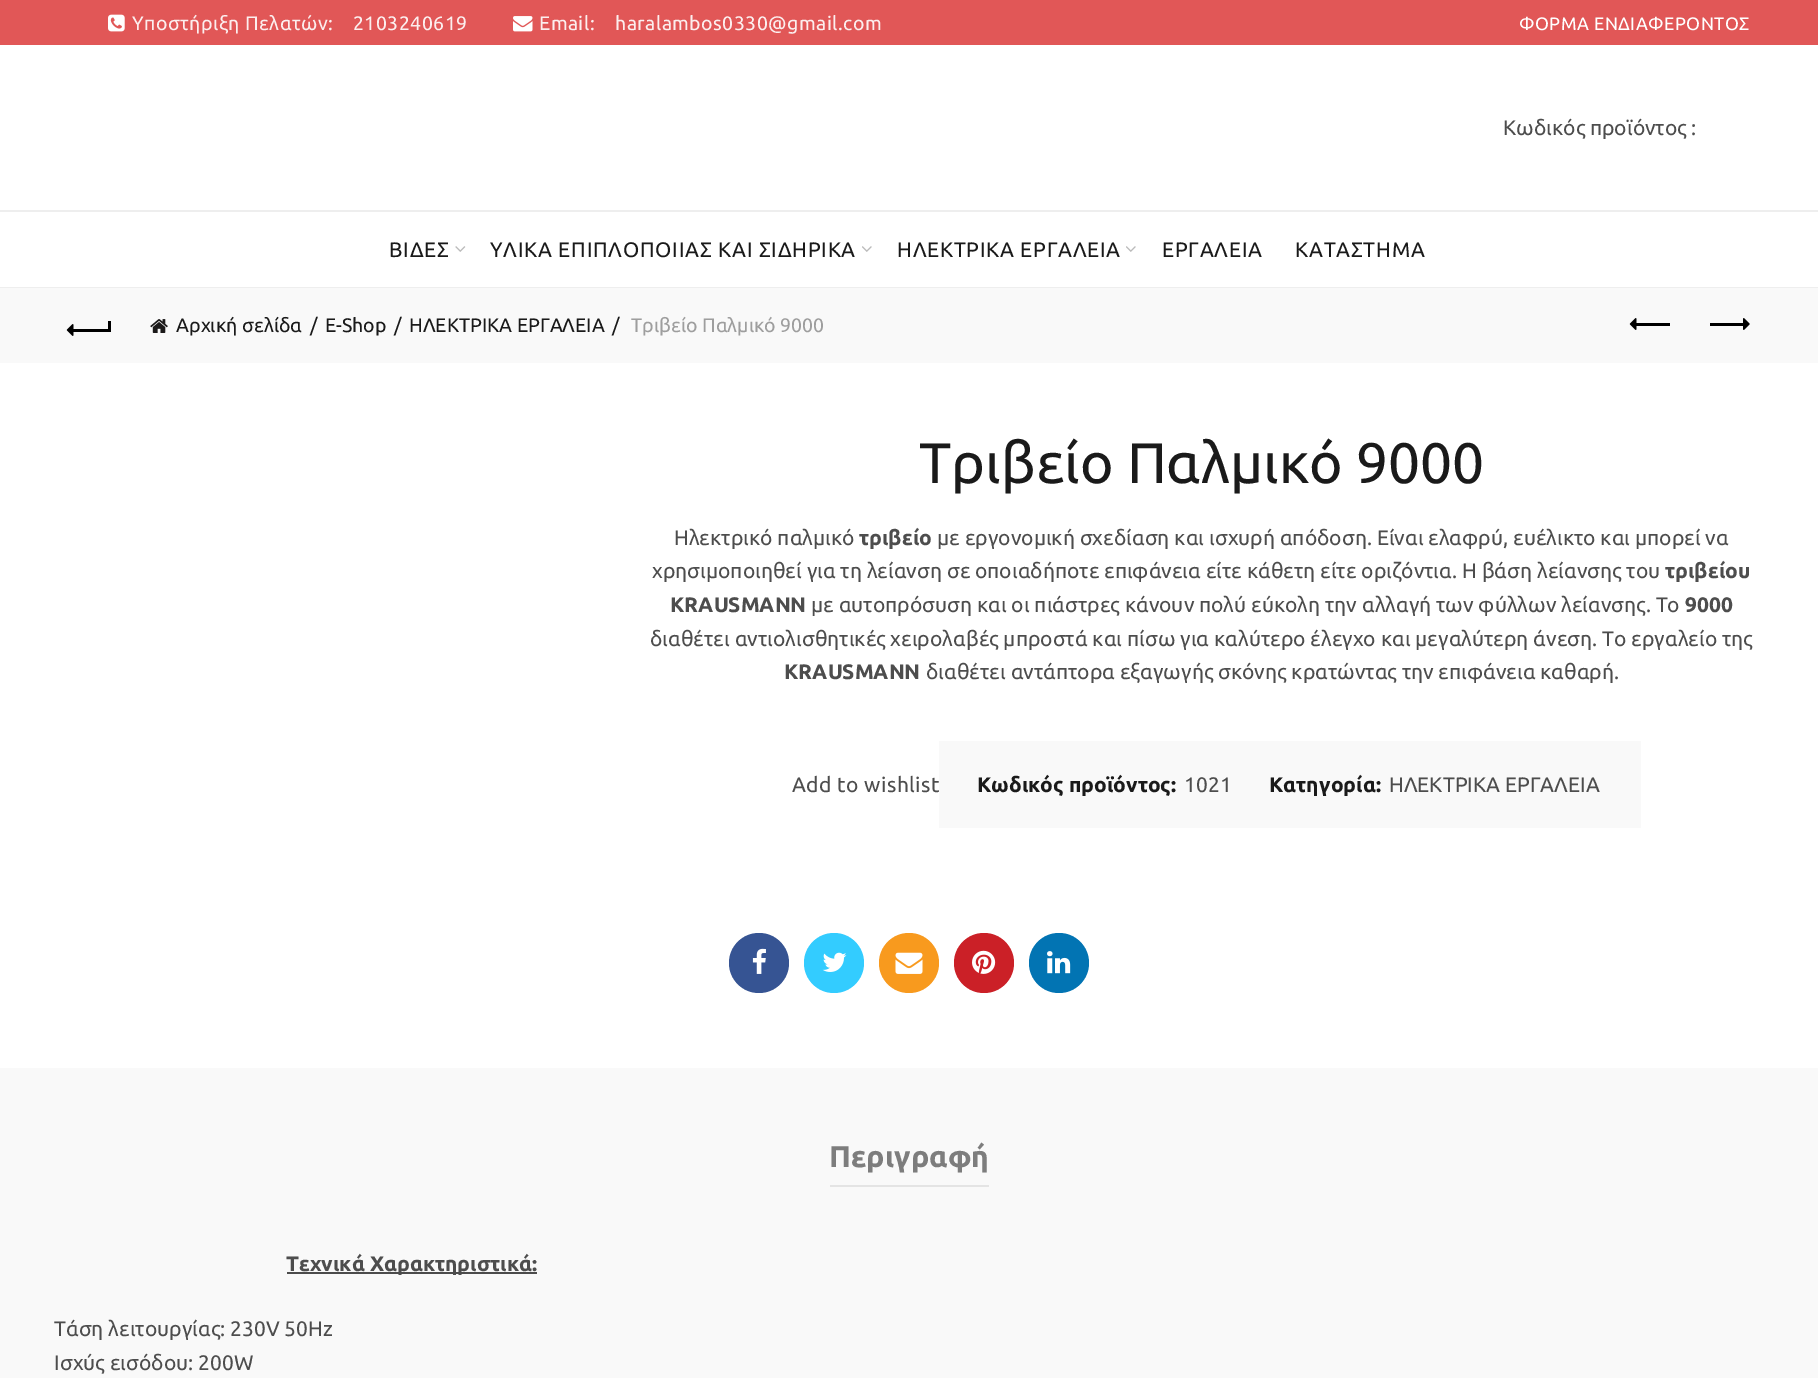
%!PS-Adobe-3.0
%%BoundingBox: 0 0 1818 1378
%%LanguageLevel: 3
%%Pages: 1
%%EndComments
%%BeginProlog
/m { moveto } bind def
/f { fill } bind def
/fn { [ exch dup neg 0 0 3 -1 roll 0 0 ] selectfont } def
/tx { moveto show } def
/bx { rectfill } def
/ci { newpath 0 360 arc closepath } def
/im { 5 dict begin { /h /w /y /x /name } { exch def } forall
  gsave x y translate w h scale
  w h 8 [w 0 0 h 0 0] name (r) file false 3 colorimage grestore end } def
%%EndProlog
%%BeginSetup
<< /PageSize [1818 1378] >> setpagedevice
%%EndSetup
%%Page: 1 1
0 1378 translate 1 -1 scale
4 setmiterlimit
1 setgray
0 0 1818 1378 bx
0.882 0.341 0.341 setrgbcolor
0 0 1818 45 bx
(image0.raw) 108 14 17 18 im
/Ubuntu-Regular 19.5 fn
0.988 0.933 0.933 setrgbcolor
132 30 m 0.45 0 (Υποστήριξη Πελατών:) ashow
353 30 m 0.45 0 (2103240619) ashow
(image1.raw) 513 16 20 16 im
539 30 m 0.45 0 (Email:) ashow
615 30 m 0.45 0 (haralambos0330@gmail.com) ashow
/Ubuntu-Regular 18 fn
1 setgray
1519 30 m 0.45 0 (ΦΟΡΜΑ ΕΝΔΙΑΦΕΡΟΝΤΟΣ) ashow
/Ubuntu-Regular 21 fn
0.302 setgray
(Κωδικός προϊόντος :) 1503 135 tx
0.933 setgray
0 210 1818 2 bx
0 287 1818 1 bx
0.102 setgray
389 257 m 0.75 0 (ΒΙΔΕΣ) ashow
(image2.raw) 455 246 11 6 im
490 257 m 0.75 0 (ΥΛΙΚΑ ΕΠΙΠΛΟΠΟΙΙΑΣ ΚΑΙ ΣΙΔΗΡΙΚΑ) ashow
(image3.raw) 862 246 10 6 im
897 257 m 0.75 0 (ΗΛΕΚΤΡΙΚΑ ΕΡΓΑΛΕΙΑ) ashow
(image3.raw) 1126 246 10 6 im
1162 257 m 0.75 0 (ΕΡΓΑΛΕΙΑ) ashow
1295 257 m 0.75 0 (ΚΑΤΑΣΤΗΜΑ) ashow
0.976 setgray
0 288 1818 75 bx
0 setgray
72 329 38 3 bx
(image4.raw) 66 324 8 12 im
108 321 3 11 bx
(image5.raw) 150 319 18 14 im
/Ubuntu-Regular 19.5 fn
0.102 setgray
(Αρχική σελίδα) 176 332 tx
(/) 310 332 tx
(E-Shop) 325 332 tx
(/) 394 332 tx
(ΗΛΕΚΤΡΙΚΑ ΕΡΓΑΛΕΙΑ) 409 332 tx
(/) 612 332 tx
0.62 setgray
(Τριβείο Παλμικό 9000) 631 332 tx
0 setgray
1635 323 35 3 bx
(image4.raw) 1629 318 8 12 im
1710 323 35 3 bx
(image6.raw) 1743 318 7 12 im
/Ubuntu-Regular 57 fn
0.102 setgray
(Τριβείο Παλμικό 9000) 919 483 tx
/Ubuntu-Regular 21 fn
0.302 setgray
(Ηλεκτρικό παλμικό) 674 545 tx
/Ubuntu-Bold 21 fn
(τριβείο) 859 545 tx
/Ubuntu-Regular 21 fn
(με εργονομική σχεδίαση και ισχυρή απόδοση. Είναι ελαφρύ, ευέλικτο και μπορεί να) 937 545 tx
(χρησιμοποιηθεί για τη λείανση σε οποιαδήποτε επιφάνεια είτε κάθετη είτε οριζόντια. Η βάση λείανσης του) 652 578 tx
/Ubuntu-Bold 21 fn
(τριβείου) 1665 578 tx
(KRAUSMANN) 670 612 tx
/Ubuntu-Regular 21 fn
(με αυτοπρόσυση και οι πιάστρες κάνουν πολύ εύκολη την αλλαγή των φύλλων λείανσης. Το) 811 612 tx
/Ubuntu-Bold 21 fn
(9000) 1685 612 tx
/Ubuntu-Regular 21 fn
(διαθέτει αντιολισθητικές χειρολαβές μπροστά και πίσω για καλύτερο έλεγχο και μεγαλύτερη άνεση. Το εργαλείο της) 650 646 tx
/Ubuntu-Bold 21 fn
(KRAUSMANN) 784 679 tx
/Ubuntu-Regular 21 fn
(διαθέτει αντάπτορα εξαγωγής σκόνης κρατώντας την επιφάνεια καθαρή.) 926 679 tx
792 792 m 0.45 0 (Add to wishlist) ashow
0.976 setgray
939 741 702 87 bx
/Ubuntu-Bold 21 fn
0.102 setgray
(Κωδικός προϊόντος:) 977 792 tx
/Ubuntu-Regular 21 fn
0.302 setgray
(1021) 1184 792 tx
/Ubuntu-Bold 21 fn
0.102 setgray
(Κατηγορία:) 1269 792 tx
/Ubuntu-Regular 21 fn
0.302 setgray
(ΗΛΕΚΤΡΙΚΑ ΕΡΓΑΛΕΙΑ) 1389 792 tx
0.212 0.329 0.576 setrgbcolor
759 963 30 ci f
(image7.raw) 752 948 14 26 im
0.2 0.8 1 setrgbcolor
834 963 30 ci f
(image8.raw) 822 952 25 20 im
0.973 0.604 0.118 setrgbcolor
909 963 30 ci f
(image9.raw) 895 952 28 22 im
0.796 0.125 0.153 setrgbcolor
984 963 30 ci f
(image10.raw) 972 950 24 24 im
0.008 0.455 0.702 setrgbcolor
1059 963 30 ci f
(image11.raw) 1047 951 24 23 im
0.976 setgray
0 1068 1818 310 bx
0.894 setgray
830 1185 159 2 bx
/Ubuntu-Bold 30 fn
0.49 setgray
(Περιγραφή) 829 1167 tx
0.298 setgray
287 1272 250 2 bx
/Ubuntu-Bold 21 fn
0.302 setgray
(Τεχνικά Χαρακτηριστικά:) 286 1271 tx
/Ubuntu-Regular 21 fn
(Τάση λειτουργίας: 230V 50Hz) 54 1336 tx
(Ισχύς εισόδου: 200W) 54 1370 tx
showpage
%%EOF
